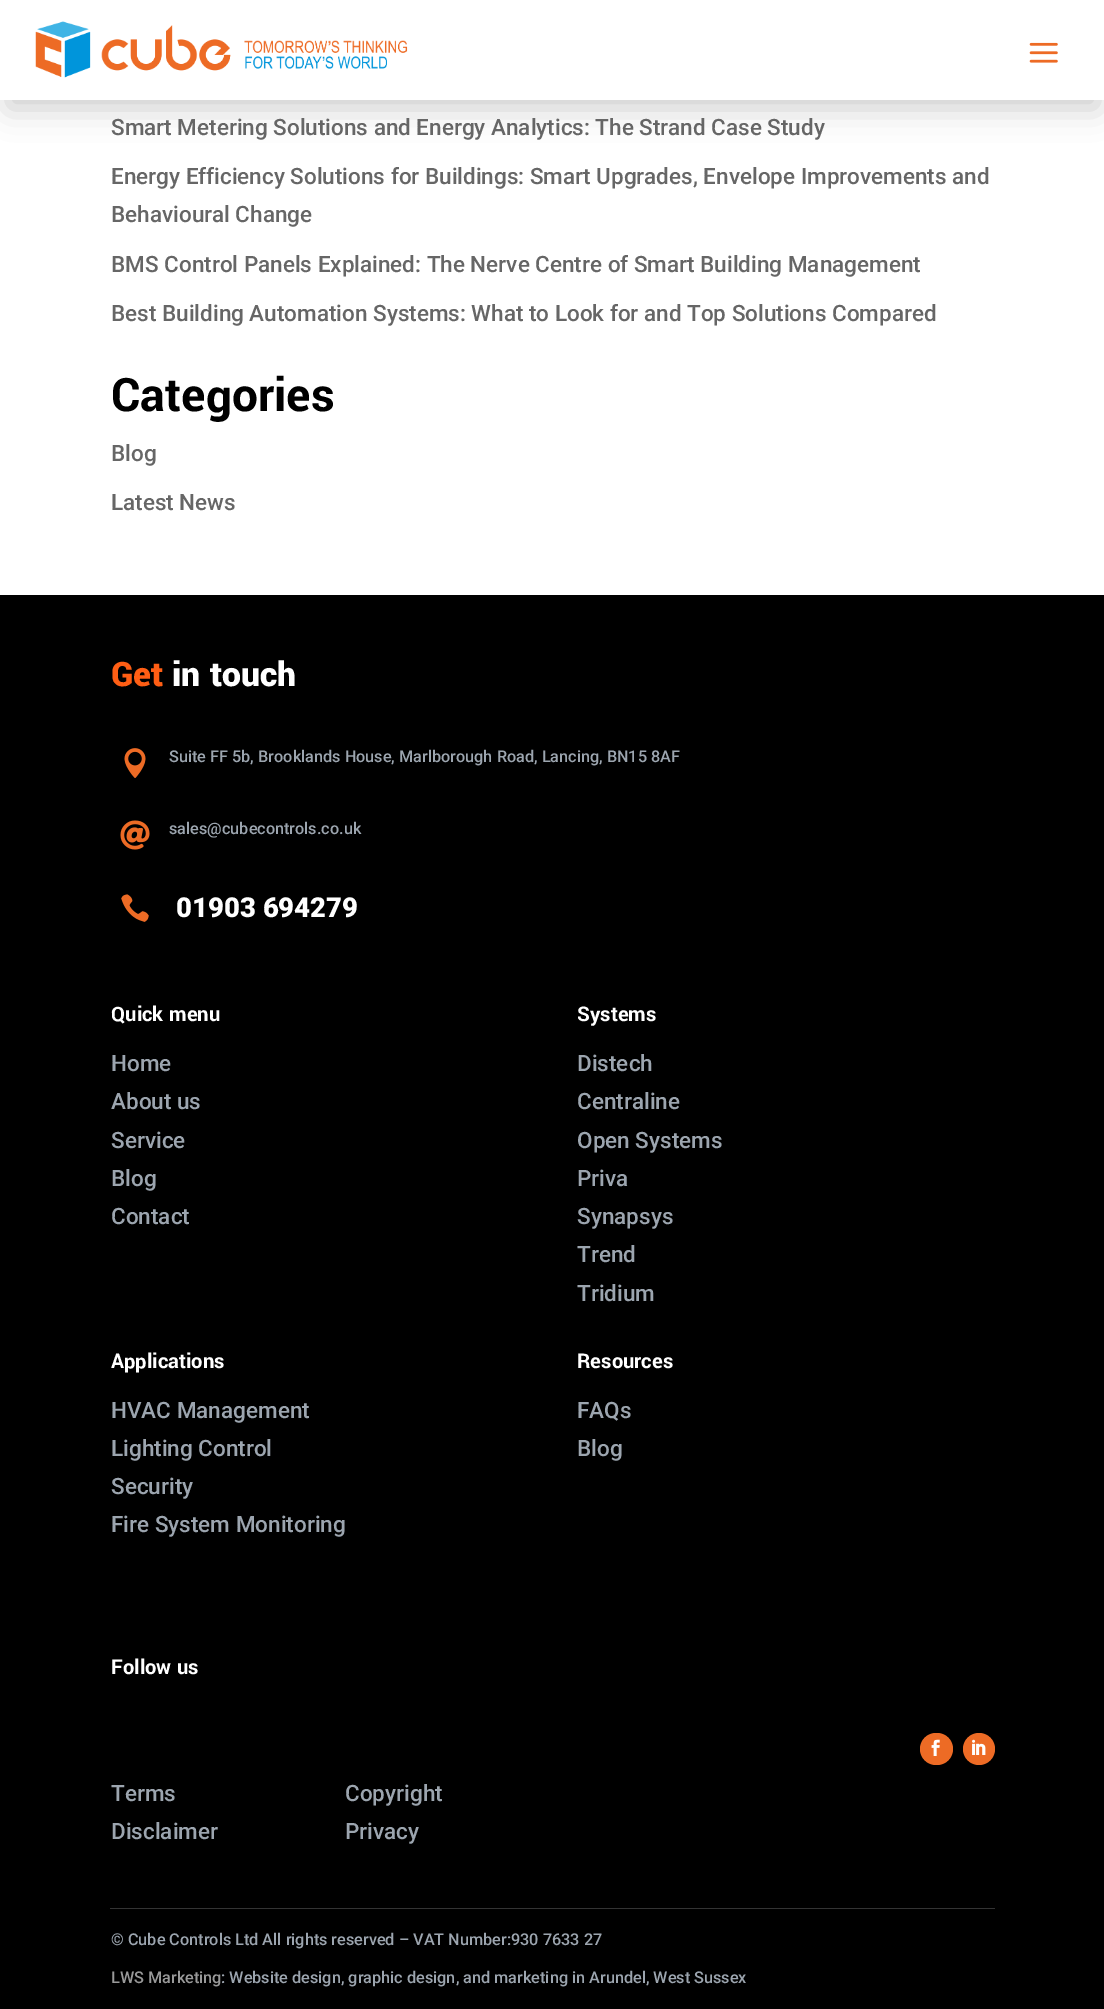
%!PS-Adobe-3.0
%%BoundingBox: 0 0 1104 2009
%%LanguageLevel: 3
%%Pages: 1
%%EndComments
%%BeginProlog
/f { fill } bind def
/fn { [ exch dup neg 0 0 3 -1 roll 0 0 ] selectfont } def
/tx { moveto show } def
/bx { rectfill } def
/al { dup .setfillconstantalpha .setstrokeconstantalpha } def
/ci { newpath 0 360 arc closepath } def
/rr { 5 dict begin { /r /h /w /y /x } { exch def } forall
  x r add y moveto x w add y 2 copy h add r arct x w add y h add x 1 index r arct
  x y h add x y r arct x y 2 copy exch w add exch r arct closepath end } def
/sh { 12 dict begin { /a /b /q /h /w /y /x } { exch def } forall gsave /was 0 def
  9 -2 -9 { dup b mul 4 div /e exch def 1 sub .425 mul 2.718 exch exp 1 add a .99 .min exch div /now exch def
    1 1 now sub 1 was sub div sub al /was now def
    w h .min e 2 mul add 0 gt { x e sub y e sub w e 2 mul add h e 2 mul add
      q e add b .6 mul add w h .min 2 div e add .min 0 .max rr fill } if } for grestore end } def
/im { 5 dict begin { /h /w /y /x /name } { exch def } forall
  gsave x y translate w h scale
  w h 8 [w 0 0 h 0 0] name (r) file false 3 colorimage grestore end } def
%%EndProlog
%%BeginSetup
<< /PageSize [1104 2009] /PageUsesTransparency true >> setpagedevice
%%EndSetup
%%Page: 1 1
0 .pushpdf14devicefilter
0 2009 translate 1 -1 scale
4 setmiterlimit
1 setgray
0 0 1104 2009 bx
0 setgray
8 23 1090 85 0 15.5 0.2 sh
1 setgray
0 0 1104 100 bx
(image0.raw) 35 21 373 57 im
(image1.raw) 1029 42 29 21 im
/Roboto-Medium 22.5 fn
0.4 setgray
(Smart Metering Solutions and Energy Analytics: The Strand Case Study) 111 135 tx
(Energy Efficiency Solutions for Buildings: Smart Upgrades, Envelope Improvements and) 111 184 tx
(Behavioural Change) 111 222 tx
(BMS Control Panels Explained: The Nerve Centre of Smart Building Management) 111 272 tx
(Best Building Automation Systems: What to Look for and Top Solutions Compared) 111 321 tx
/Yantramanav-Bold 51.25 fn
0 setgray
(Categories) 111 411 tx
/Roboto-Medium 22.5 fn
0.4 setgray
(Blog) 111 461 tx
(Latest News) 111 510 tx
0 setgray
0 595 1104 1414 bx
/Yantramanav-Black 37.5 fn
1 0.369 0.078 setrgbcolor
(Get) 111 686 tx
1 setgray
(in touch) 172 686 tx
(image2.raw) 124 748 22 30 im
/Roboto-Medium 16.25 fn
0.612 0.647 0.686 setrgbcolor
(Suite FF 5b, Brooklands House, Marlborough Road, Lancing, BN15 8AF) 169 762 tx
(image3.raw) 120 820 30 30 im
(sales@cubecontrols.co.uk) 169 834 tx
(image4.raw) 121 894 28 28 im
/Roboto-Black 27.5 fn
1 setgray
(01903 694279) 176 917 tx
/Yantramanav-Bold 22.5 fn
(Quick menu) 111 1021 tx
/Roboto-Medium 22.5 fn
0.612 0.647 0.686 setrgbcolor
(Home) 111 1071 tx
(About us) 111 1109 tx
(Service) 111 1148 tx
(Blog) 111 1186 tx
(Contact) 111 1224 tx
/Yantramanav-Bold 22.5 fn
1 setgray
(Systems) 577 1021 tx
/Roboto-Medium 22.5 fn
0.612 0.647 0.686 setrgbcolor
(Distech) 577 1071 tx
(Centraline) 577 1109 tx
(Open Systems) 577 1148 tx
(Priva) 577 1186 tx
(Synapsys) 577 1224 tx
(Trend) 577 1262 tx
(Tridium) 577 1301 tx
/Yantramanav-Bold 22.5 fn
1 setgray
(Applications) 111 1368 tx
/Roboto-Medium 22.5 fn
0.612 0.647 0.686 setrgbcolor
(HVAC Management) 111 1418 tx
(Lighting Control) 111 1456 tx
(Security) 111 1494 tx
(Fire System Monitoring) 111 1532 tx
/Yantramanav-Bold 22.5 fn
1 setgray
(Resources) 577 1368 tx
/Roboto-Medium 22.5 fn
0.612 0.647 0.686 setrgbcolor
(FAQs) 577 1418 tx
(Blog) 577 1456 tx
/Yantramanav-Bold 22.5 fn
1 setgray
(Follow us) 111 1674 tx
0.929 0.42 0.145 setrgbcolor
920 1733 33 32 16 rr f
(image5.raw) 931 1739 9 17 im
979 1749 16 ci f
(image6.raw) 972 1739 14 16 im
/Roboto-Medium 22.5 fn
0.612 0.647 0.686 setrgbcolor
(Terms) 111 1801 tx
(Copyright) 345 1801 tx
(Disclaimer) 111 1839 tx
(Privacy) 345 1839 tx
0.2 setgray
110 1908 885 1 bx
/Roboto-Medium 16.25 fn
0.612 0.647 0.686 setrgbcolor
(© Cube Controls Ltd All rights reserved – VAT Number:930 7633 27) 111 1945 tx
0.6 setgray
(LWS Marketing) 111 1983 tx
0.612 0.647 0.686 setrgbcolor
(: Website design, graphic design, and marketing in Arundel, West Sussex) 221 1983 tx
.poppdf14devicefilter showpage
%%EOF
